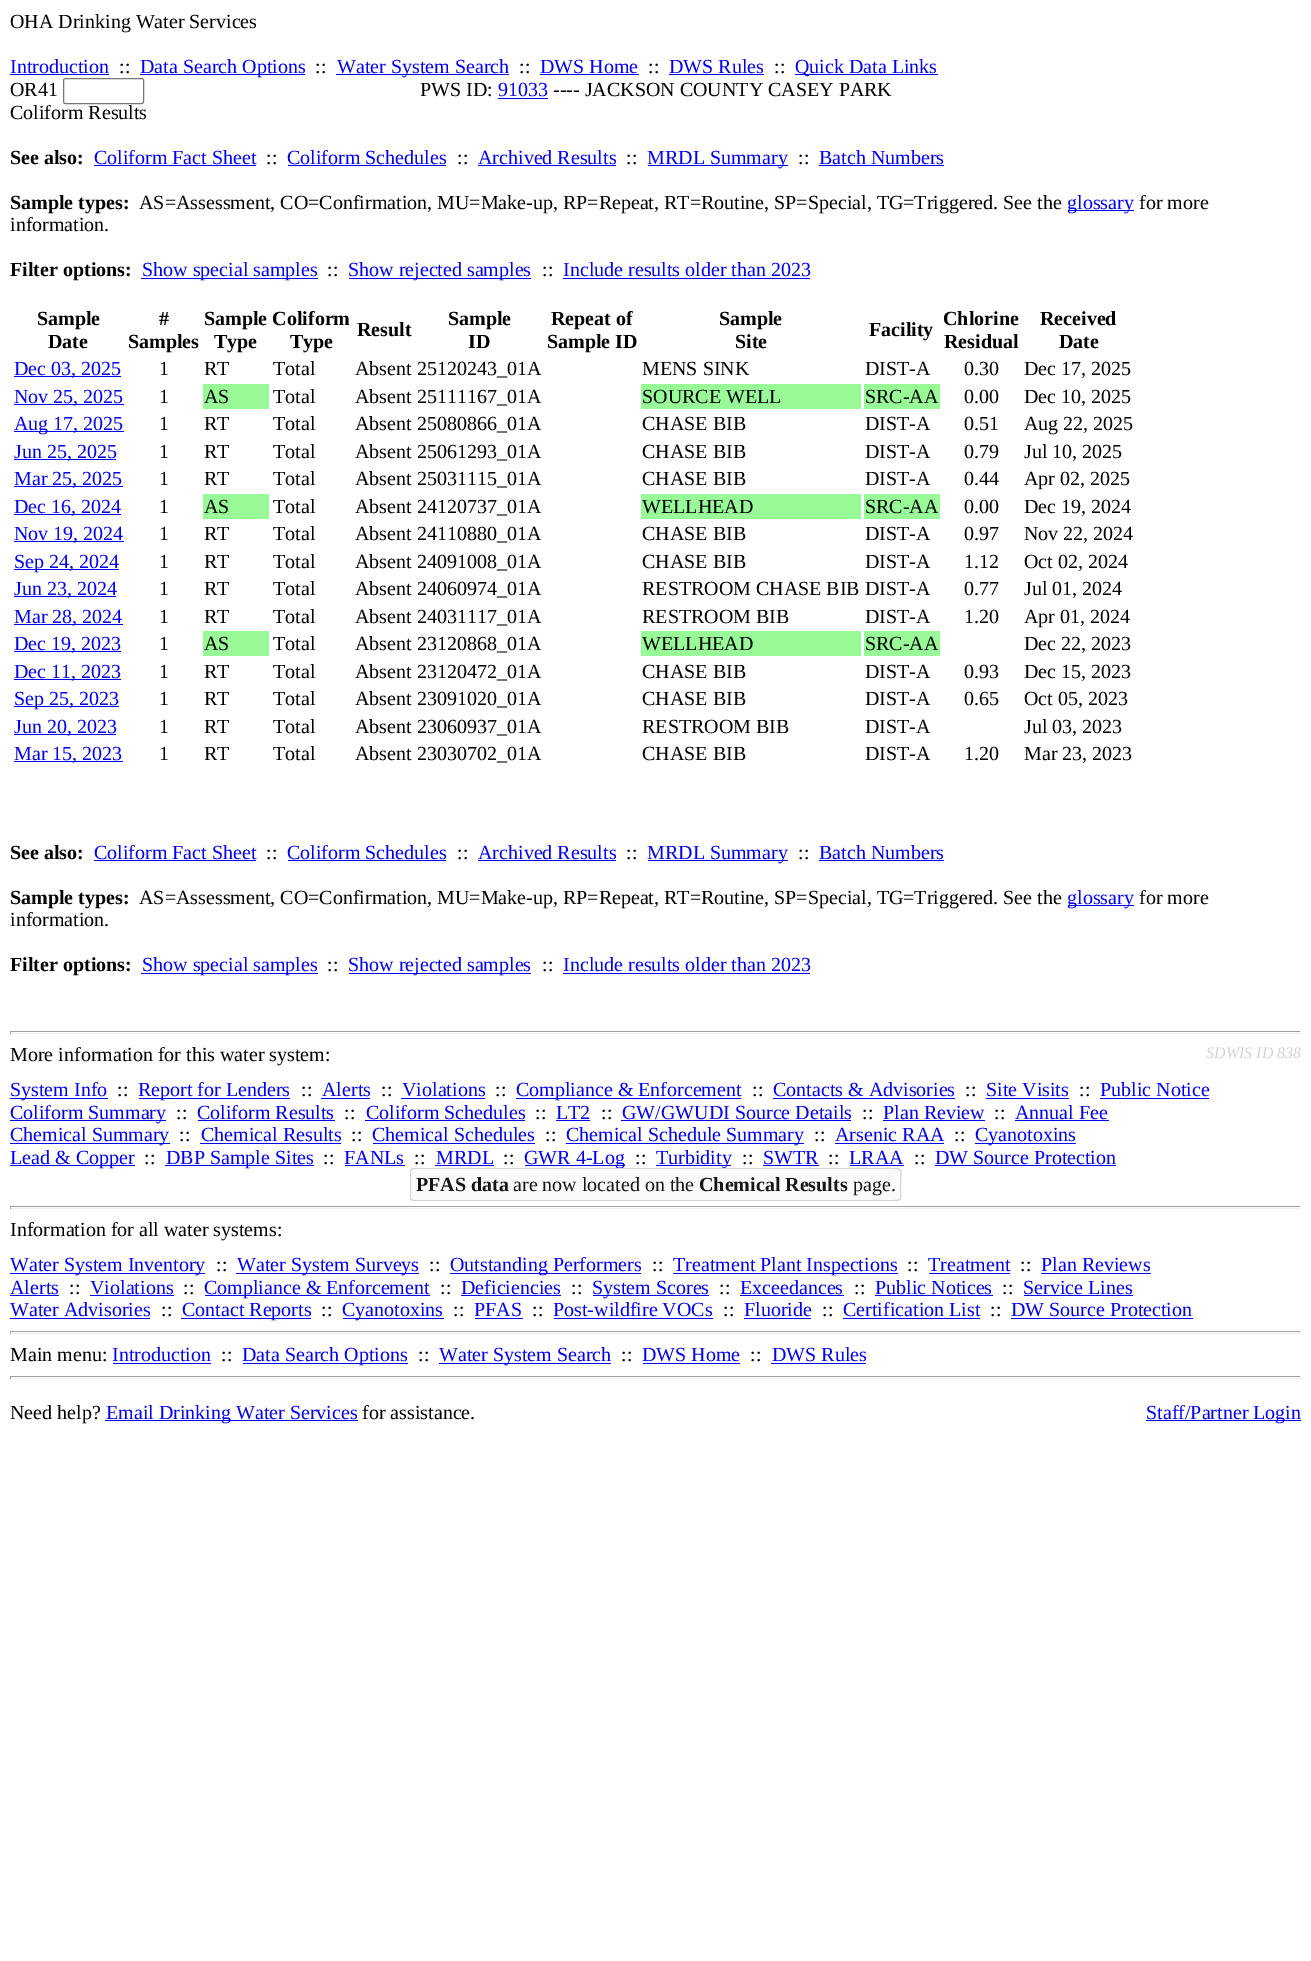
%!PS-Adobe-3.0
%%BoundingBox: 0 0 1311 1961
%%LanguageLevel: 3
%%Pages: 1
%%EndComments
%%BeginProlog
/m { moveto } bind def
/l { lineto } bind def
/c { curveto } bind def
/h { closepath } bind def
/f { fill } bind def
/S { stroke } bind def
/fn { [ exch dup neg 0 0 3 -1 roll 0 0 ] selectfont } def
/tx { moveto show } def
/bx { rectfill } def
/rr { 5 dict begin { /r /h /w /y /x } { exch def } forall
  x r add y moveto x w add y 2 copy h add r arct x w add y h add x 1 index r arct
  x y h add x y r arct x y 2 copy exch w add exch r arct closepath end } def
%%EndProlog
%%BeginSetup
<< /PageSize [1311 1961] >> setpagedevice
%%EndSetup
%%Page: 1 1
0 1961 translate 1 -1 scale
4 setmiterlimit
1 setgray
0 0 1311 1961 bx
/LiberationSerif-Regular 20 fn
0 setgray
(OHA Drinking Water Services) 10 28 tx
0 0 0.933 setrgbcolor
(Introduction) 10 73 tx
10 74 99 1 bx
0 setgray
(::) 119 73 tx
0 0 0.933 setrgbcolor
140 74 165 1 bx
(Data Search Options) 140 73 tx
0 setgray
(::) 315 73 tx
0 0 0.933 setrgbcolor
336 74 173 1 bx
(Water System Search) 337 73 tx
0 setgray
(::) 519 73 tx
0 0 0.933 setrgbcolor
(DWS Home) 540 73 tx
540 74 99 1 bx
0 setgray
(::) 648 73 tx
0 0 0.933 setrgbcolor
(DWS Rules) 669 73 tx
669 74 95 1 bx
0 setgray
(::) 774 73 tx
0 0 0.933 setrgbcolor
795 74 143 1 bx
(Quick Data Links) 795 73 tx
0 setgray
(OR41) 10 96 tx
0.463 setgray
63.5 78.5 80 25 2 rr S
0 setgray
(PWS ID:) 420 96 tx
0 0 0.933 setrgbcolor
(91033) 498 96 tx
498 98 50 1 bx
0 setgray
(---- JACKSON COUNTY CASEY PARK) 553 96 tx
(Coliform Results) 10 119 tx
/LiberationSerif-Bold 20 fn
(See also:) 10 164 tx
/LiberationSerif-Regular 20 fn
0 0 0.933 setrgbcolor
(Coliform Fact Sheet) 94 164 tx
94 165 162 1 bx
0 setgray
(::) 266 164 tx
0 0 0.933 setrgbcolor
(Coliform Schedules) 287 164 tx
288 165 158 1 bx
0 setgray
(::) 457 164 tx
0 0 0.933 setrgbcolor
(Archived Results) 478 164 tx
478 165 138 1 bx
0 setgray
(::) 626 164 tx
0 0 0.933 setrgbcolor
648 165 140 1 bx
(MRDL Summary) 647 164 tx
0 setgray
(::) 798 164 tx
0 0 0.933 setrgbcolor
(Batch Numbers) 819 164 tx
819 165 125 1 bx
/LiberationSerif-Bold 20 fn
0 setgray
(Sample types:) 10 209 tx
/LiberationSerif-Regular 20 fn
(AS=Assessment, CO=Confirmation, MU=Make-up, RP=Repeat, RT=Routine, SP=Special, TG=Triggered. See the) 139 209 tx
0 0 0.933 setrgbcolor
1068 210 66 1 bx
(glossary) 1067 209 tx
0 setgray
(for more) 1139 209 tx
(information.) 10 231 tx
/LiberationSerif-Bold 20 fn
(Filter options:) 10 276 tx
0 0 0.933 setrgbcolor
141 278 177 1 bx
/LiberationSerif-Regular 20 fn
(Show special samples) 142 276 tx
0 setgray
(::) 327 276 tx
0 0 0.933 setrgbcolor
349 278 182 1 bx
(Show rejected samples) 348 276 tx
0 setgray
(::) 542 276 tx
0 0 0.933 setrgbcolor
(Include results older than 2023) 563 276 tx
563 278 247 1 bx
/LiberationSerif-Bold 20 fn
0 setgray
(Sample) 37 325 tx
(Date) 48 348 tx
(#) 159 325 tx
(Samples) 128 348 tx
(Sample Coliform) 204 325 tx
(Type) 214 348 tx
(Result) 357 336 tx
(Sample) 448 325 tx
(ID) 468 348 tx
(Repeat of) 551 325 tx
(Sample ID) 547 348 tx
(Sample) 719 325 tx
(Site) 735 348 tx
(Facility) 869 336 tx
(Chlorine) 943 325 tx
(Residual) 944 348 tx
(Received) 1040 325 tx
(Date) 1059 348 tx
(Type) 290 348 tx
0 0 0.933 setrgbcolor
14 376 107 1 bx
/LiberationSerif-Regular 20 fn
(Dec 03, 2025) 14 375 tx
0 setgray
(1) 159 375 tx
(RT) 204 375 tx
(Total) 273 375 tx
(Absent 25120243_01A) 355 375 tx
(MENS SINK) 642 375 tx
(DIST-A) 865 375 tx
(0.30) 964 375 tx
(Dec 17, 2025) 1024 375 tx
0 0 0.933 setrgbcolor
14 404 110 1 bx
(Nov 25, 2025) 14 403 tx
0 setgray
(1) 159 403 tx
0.596 0.984 0.596 setrgbcolor
203 384 66 25 bx
0 setgray
(AS) 204 403 tx
(Total) 273 403 tx
(Absent 25111167_01A) 355 403 tx
0.596 0.984 0.596 setrgbcolor
641 384 220 25 bx
0 setgray
(SOURCE WELL) 642 403 tx
0.596 0.984 0.596 setrgbcolor
864 384 76 25 bx
0 setgray
(SRC-AA) 865 403 tx
(0.00) 964 403 tx
(Dec 10, 2025) 1024 403 tx
0 0 0.933 setrgbcolor
14 431 110 1 bx
(Aug 17, 2025) 14 430 tx
0 setgray
(1) 159 430 tx
(RT) 204 430 tx
(Total) 273 430 tx
(Absent 25080866_01A) 355 430 tx
(CHASE BIB) 642 430 tx
(DIST-A) 865 430 tx
(0.51) 964 430 tx
(Aug 22, 2025) 1024 430 tx
0 0 0.933 setrgbcolor
14 459 102 1 bx
(Jun 25, 2025) 14 458 tx
0 setgray
(1) 159 458 tx
(RT) 204 458 tx
(Total) 273 458 tx
(Absent 25061293_01A) 355 458 tx
(CHASE BIB) 642 458 tx
(DIST-A) 865 458 tx
(0.79) 964 458 tx
(Jul 10, 2025) 1024 458 tx
0 0 0.933 setrgbcolor
14 486 109 1 bx
(Mar 25, 2025) 14 485 tx
0 setgray
(1) 159 485 tx
(RT) 204 485 tx
(Total) 273 485 tx
(Absent 25031115_01A) 355 485 tx
(CHASE BIB) 642 485 tx
(DIST-A) 865 485 tx
(0.44) 964 485 tx
(Apr 02, 2025) 1024 485 tx
0 0 0.933 setrgbcolor
14 514 107 1 bx
(Dec 16, 2024) 14 513 tx
0 setgray
(1) 159 513 tx
0.596 0.984 0.596 setrgbcolor
203 494 66 25 bx
0 setgray
(AS) 204 513 tx
(Total) 273 513 tx
(Absent 24120737_01A) 355 513 tx
0.596 0.984 0.596 setrgbcolor
641 494 220 25 bx
0 setgray
(WELLHEAD) 642 513 tx
0.596 0.984 0.596 setrgbcolor
864 494 76 25 bx
0 setgray
(SRC-AA) 865 513 tx
(0.00) 964 513 tx
(Dec 19, 2024) 1024 513 tx
0 0 0.933 setrgbcolor
14 541 110 1 bx
(Nov 19, 2024) 14 540 tx
0 setgray
(1) 159 540 tx
(RT) 204 540 tx
(Total) 273 540 tx
(Absent 24110880_01A) 355 540 tx
(CHASE BIB) 642 540 tx
(DIST-A) 865 540 tx
(0.97) 964 540 tx
(Nov 22, 2024) 1024 540 tx
0 0 0.933 setrgbcolor
14 569 105 1 bx
(Sep 24, 2024) 14 568 tx
0 setgray
(1) 159 568 tx
(RT) 204 568 tx
(Total) 273 568 tx
(Absent 24091008_01A) 355 568 tx
(CHASE BIB) 642 568 tx
(DIST-A) 865 568 tx
(1.12) 964 568 tx
(Oct 02, 2024) 1024 568 tx
0 0 0.933 setrgbcolor
14 596 102 1 bx
(Jun 23, 2024) 14 595 tx
0 setgray
(1) 159 595 tx
(RT) 204 595 tx
(Total) 273 595 tx
(Absent 24060974_01A) 355 595 tx
(RESTROOM CHASE BIB DIST-A) 642 595 tx
(0.77) 964 595 tx
(Jul 01, 2024) 1024 595 tx
0 0 0.933 setrgbcolor
14 624 109 1 bx
(Mar 28, 2024) 14 623 tx
0 setgray
(1) 159 623 tx
(RT) 204 623 tx
(Total) 273 623 tx
(Absent 24031117_01A) 355 623 tx
(RESTROOM BIB) 642 623 tx
(DIST-A) 865 623 tx
(1.20) 964 623 tx
(Apr 01, 2024) 1024 623 tx
0 0 0.933 setrgbcolor
14 651 107 1 bx
(Dec 19, 2023) 14 650 tx
0 setgray
(1) 159 650 tx
0.596 0.984 0.596 setrgbcolor
203 631 66 25 bx
0 setgray
(AS) 204 650 tx
(Total) 273 650 tx
(Absent 23120868_01A) 355 650 tx
0.596 0.984 0.596 setrgbcolor
641 631 220 25 bx
0 setgray
(WELLHEAD) 642 650 tx
0.596 0.984 0.596 setrgbcolor
864 631 76 25 bx
0 setgray
(SRC-AA) 865 650 tx
(Dec 22, 2023) 1024 650 tx
0 0 0.933 setrgbcolor
14 679 107 1 bx
(Dec 11, 2023) 14 678 tx
0 setgray
(1) 159 678 tx
(RT) 204 678 tx
(Total) 273 678 tx
(Absent 23120472_01A) 355 678 tx
(CHASE BIB) 642 678 tx
(DIST-A) 865 678 tx
(0.93) 964 678 tx
(Dec 15, 2023) 1024 678 tx
0 0 0.933 setrgbcolor
14 706 105 1 bx
(Sep 25, 2023) 14 705 tx
0 setgray
(1) 159 705 tx
(RT) 204 705 tx
(Total) 273 705 tx
(Absent 23091020_01A) 355 705 tx
(CHASE BIB) 642 705 tx
(DIST-A) 865 705 tx
(0.65) 964 705 tx
(Oct 05, 2023) 1024 705 tx
0 0 0.933 setrgbcolor
14 734 102 1 bx
(Jun 20, 2023) 14 733 tx
0 setgray
(1) 159 733 tx
(RT) 204 733 tx
(Total) 273 733 tx
(Absent 23060937_01A) 355 733 tx
(RESTROOM BIB) 642 733 tx
(DIST-A) 865 733 tx
(Jul 03, 2023) 1024 733 tx
0 0 0.933 setrgbcolor
14 761 109 1 bx
(Mar 15, 2023) 14 760 tx
0 setgray
(1) 159 760 tx
(RT) 204 760 tx
(Total) 273 760 tx
(Absent 23030702_01A) 355 760 tx
(CHASE BIB) 642 760 tx
(DIST-A) 865 760 tx
(1.20) 964 760 tx
(Mar 23, 2023) 1024 760 tx
/LiberationSerif-Bold 20 fn
(See also:) 10 859 tx
/LiberationSerif-Regular 20 fn
0 0 0.933 setrgbcolor
(Coliform Fact Sheet) 94 859 tx
94 860 162 1 bx
0 setgray
(::) 266 859 tx
0 0 0.933 setrgbcolor
(Coliform Schedules) 287 859 tx
288 860 158 1 bx
0 setgray
(::) 457 859 tx
0 0 0.933 setrgbcolor
(Archived Results) 478 859 tx
478 860 138 1 bx
0 setgray
(::) 626 859 tx
0 0 0.933 setrgbcolor
648 860 140 1 bx
(MRDL Summary) 647 859 tx
0 setgray
(::) 798 859 tx
0 0 0.933 setrgbcolor
(Batch Numbers) 819 859 tx
819 860 125 1 bx
/LiberationSerif-Bold 20 fn
0 setgray
(Sample types:) 10 904 tx
/LiberationSerif-Regular 20 fn
(AS=Assessment, CO=Confirmation, MU=Make-up, RP=Repeat, RT=Routine, SP=Special, TG=Triggered. See the) 139 904 tx
0 0 0.933 setrgbcolor
1068 905 66 1 bx
(glossary) 1067 904 tx
0 setgray
(for more) 1139 904 tx
(information.) 10 926 tx
/LiberationSerif-Bold 20 fn
(Filter options:) 10 971 tx
0 0 0.933 setrgbcolor
141 973 177 1 bx
/LiberationSerif-Regular 20 fn
(Show special samples) 142 971 tx
0 setgray
(::) 327 971 tx
0 0 0.933 setrgbcolor
349 973 182 1 bx
(Show rejected samples) 348 971 tx
0 setgray
(::) 542 971 tx
0 0 0.933 setrgbcolor
(Include results older than 2023) 563 971 tx
563 973 247 1 bx
0.624 setgray
10 1031 1291 1 bx
0.933 setgray
1300 1031 1 3 bx
10 1033 1291 1 bx
0.624 setgray
10 1031 1 3 bx
0 setgray
(More information for this water system:) 10 1061 tx
/LiberationSerif-Italic 16 fn
0.827 setgray
(SDWIS ID 838) 1206 1058 tx
0 0 0.933 setrgbcolor
10 1098 98 1 bx
/LiberationSerif-Regular 20 fn
(System Info) 10 1096 tx
0 setgray
(::) 117 1096 tx
0 0 0.933 setrgbcolor
139 1098 151 1 bx
(Report for Lenders) 138 1096 tx
0 setgray
(::) 301 1096 tx
0 0 0.933 setrgbcolor
(Alerts) 322 1096 tx
321 1098 49 1 bx
0 setgray
(::) 381 1096 tx
0 0 0.933 setrgbcolor
(Violations) 402 1096 tx
401 1098 84 1 bx
0 setgray
(::) 495 1096 tx
0 0 0.933 setrgbcolor
516 1098 225 1 bx
(Compliance & Enforcement) 516 1096 tx
0 setgray
(::) 752 1096 tx
0 0 0.933 setrgbcolor
(Contacts & Advisories) 773 1096 tx
773 1098 182 1 bx
0 setgray
(::) 965 1096 tx
0 0 0.933 setrgbcolor
(Site Visits) 986 1096 tx
986 1098 83 1 bx
0 setgray
(::) 1079 1096 tx
0 0 0.933 setrgbcolor
(Public Notice) 1100 1096 tx
1100 1098 109 1 bx
10 1120 156 1 bx
(Coliform Summary) 10 1119 tx
0 setgray
(::) 176 1119 tx
0 0 0.933 setrgbcolor
(Coliform Results) 197 1119 tx
198 1120 137 1 bx
0 setgray
(::) 344 1119 tx
0 0 0.933 setrgbcolor
(Coliform Schedules) 366 1119 tx
365 1120 160 1 bx
0 setgray
(::) 535 1119 tx
0 0 0.933 setrgbcolor
(LT2) 556 1119 tx
556 1120 34 1 bx
0 setgray
(::) 601 1119 tx
0 0 0.933 setrgbcolor
(GW/GWUDI Source Details) 622 1119 tx
621 1120 230 1 bx
0 setgray
(::) 862 1119 tx
0 0 0.933 setrgbcolor
(Plan Review) 883 1119 tx
883 1120 102 1 bx
0 setgray
(::) 994 1119 tx
0 0 0.933 setrgbcolor
(Annual Fee) 1015 1119 tx
1015 1120 94 1 bx
10 1143 160 1 bx
(Chemical Summary) 10 1141 tx
0 setgray
(::) 179 1141 tx
0 0 0.933 setrgbcolor
(Chemical Results) 201 1141 tx
200 1143 141 1 bx
0 setgray
(::) 351 1141 tx
0 0 0.933 setrgbcolor
(Chemical Schedules) 372 1141 tx
373 1143 162 1 bx
0 setgray
(::) 545 1141 tx
0 0 0.933 setrgbcolor
566 1143 238 1 bx
(Chemical Schedule Summary) 566 1141 tx
0 setgray
(::) 814 1141 tx
0 0 0.933 setrgbcolor
(Arsenic RAA) 835 1141 tx
835 1143 109 1 bx
0 setgray
(::) 954 1141 tx
0 0 0.933 setrgbcolor
975 1143 101 1 bx
(Cyanotoxins) 975 1141 tx
10 1165 125 1 bx
(Lead & Copper) 10 1164 tx
0 setgray
(::) 144 1164 tx
0 0 0.933 setrgbcolor
165 1165 149 1 bx
(DBP Sample Sites) 166 1164 tx
0 setgray
(::) 323 1164 tx
0 0 0.933 setrgbcolor
(FANLs) 344 1164 tx
345 1165 60 1 bx
0 setgray
(::) 414 1164 tx
0 0 0.933 setrgbcolor
(MRDL) 436 1164 tx
435 1165 59 1 bx
0 setgray
(::) 503 1164 tx
0 0 0.933 setrgbcolor
525 1165 100 1 bx
(GWR 4-Log) 524 1164 tx
0 setgray
(::) 635 1164 tx
0 0 0.933 setrgbcolor
656 1165 75 1 bx
(Turbidity) 656 1164 tx
0 setgray
(::) 742 1164 tx
0 0 0.933 setrgbcolor
(SWTR) 763 1164 tx
763 1165 56 1 bx
0 setgray
(::) 828 1164 tx
0 0 0.933 setrgbcolor
(LRAA) 849 1164 tx
850 1165 54 1 bx
0 setgray
(::) 914 1164 tx
0 0 0.933 setrgbcolor
(DW Source Protection) 935 1164 tx
935 1165 181 1 bx
0.98 setgray
414 1168 m 509 1168 l 509 1201 l 414 1201 l 412 1201 410 1199 410 1197 c 410 1172 l 410 1170 412 1168 414 1168 c h f
0.827 setgray
414 1168 m 509 1168 l 509 1201 l 414 1201 l 412 1201 410 1200 410 1198 c 410 1171 l 410 1169 412 1168 414 1168 c h 414 1169 m 509 1169 l 509 1200 l 414 1200 l 412 1200 411 1199 411 1198 c 411 1171 l 411 1170 412 1169 414 1169 c h eofill
/LiberationSerif-Bold 20 fn
0.082 setgray
(PFAS data) 416 1191 tx
0.98 setgray
509 1169 339 31 bx
0.827 setgray
509 1168 339 1 bx
/LiberationSerif-Regular 20 fn
0.082 setgray
(are now located on the) 513 1191 tx
/LiberationSerif-Bold 20 fn
(Chemical Results) 699 1191 tx
0.98 setgray
848 1168 m 897 1168 l 899 1168 901 1170 901 1172 c 901 1197 l 901 1199 899 1201 897 1201 c 848 1201 l h f
0.827 setgray
848 1168 m 889 1168 l 905 1168 901 1168 901 1184 c 901 1201 905 1201 889 1201 c 848 1201 l h 848 1169 m 889 1169 l 904 1169 900 1168 900 1184 c 900 1201 904 1200 889 1200 c 848 1200 l h eofill
/LiberationSerif-Regular 20 fn
0.082 setgray
(page.) 853 1191 tx
0.827 setgray
509 1200 339 1 bx
0.624 setgray
10 1206 1291 1 bx
0.933 setgray
1300 1206 1 3 bx
10 1208 1291 1 bx
0.624 setgray
10 1206 1 3 bx
0 setgray
(Information for all water systems:) 10 1236 tx
0 0 0.933 setrgbcolor
10 1273 195 1 bx
(Water System Inventory) 10 1271 tx
0 setgray
(::) 216 1271 tx
0 0 0.933 setrgbcolor
236 1273 183 1 bx
(Water System Surveys) 237 1271 tx
0 setgray
(::) 429 1271 tx
0 0 0.933 setrgbcolor
450 1273 191 1 bx
(Outstanding Performers) 450 1271 tx
0 setgray
(::) 652 1271 tx
0 0 0.933 setrgbcolor
673 1273 225 1 bx
(Treatment Plant Inspections) 673 1271 tx
0 setgray
(::) 907 1271 tx
0 0 0.933 setrgbcolor
(Treatment) 928 1271 tx
929 1273 81 1 bx
0 setgray
(::) 1020 1271 tx
0 0 0.933 setrgbcolor
(Plan Reviews) 1041 1271 tx
1041 1273 110 1 bx
(Alerts) 10 1294 tx
10 1295 49 1 bx
0 setgray
(::) 69 1294 tx
0 0 0.933 setrgbcolor
(Violations) 90 1294 tx
90 1295 84 1 bx
0 setgray
(::) 183 1294 tx
0 0 0.933 setrgbcolor
205 1295 225 1 bx
(Compliance & Enforcement) 204 1294 tx
0 setgray
(::) 440 1294 tx
0 0 0.933 setrgbcolor
(Deficiencies) 461 1294 tx
461 1295 100 1 bx
0 setgray
(::) 571 1294 tx
0 0 0.933 setrgbcolor
593 1295 116 1 bx
(System Scores) 592 1294 tx
0 setgray
(::) 719 1294 tx
0 0 0.933 setrgbcolor
(Exceedances) 740 1294 tx
740 1295 104 1 bx
0 setgray
(::) 854 1294 tx
0 0 0.933 setrgbcolor
(Public Notices) 875 1294 tx
875 1295 118 1 bx
0 setgray
(::) 1002 1294 tx
0 0 0.933 setrgbcolor
(Service Lines) 1023 1294 tx
1024 1295 109 1 bx
(Water Advisories) 10 1316 tx
10 1318 140 1 bx
0 setgray
(::) 161 1316 tx
0 0 0.933 setrgbcolor
181 1318 130 1 bx
(Contact Reports) 182 1316 tx
0 setgray
(::) 321 1316 tx
0 0 0.933 setrgbcolor
343 1318 101 1 bx
(Cyanotoxins) 342 1316 tx
0 setgray
(::) 453 1316 tx
0 0 0.933 setrgbcolor
(PFAS) 474 1316 tx
475 1318 48 1 bx
0 setgray
(::) 532 1316 tx
0 0 0.933 setrgbcolor
(Post-wildfire VOCs) 553 1316 tx
554 1318 159 1 bx
0 setgray
(::) 723 1316 tx
0 0 0.933 setrgbcolor
(Fluoride) 744 1316 tx
744 1318 67 1 bx
0 setgray
(::) 822 1316 tx
0 0 0.933 setrgbcolor
(Certification List) 843 1316 tx
843 1318 137 1 bx
0 setgray
(::) 990 1316 tx
0 0 0.933 setrgbcolor
(DW Source Protection) 1011 1316 tx
1011 1318 182 1 bx
0.624 setgray
10 1331 1291 1 bx
0.933 setgray
1300 1331 1 3 bx
10 1333 1291 1 bx
0.624 setgray
10 1331 1 3 bx
0 setgray
(Main menu:) 10 1361 tx
0 0 0.933 setrgbcolor
(Introduction) 112 1361 tx
113 1363 98 1 bx
0 setgray
(::) 221 1361 tx
0 0 0.933 setrgbcolor
243 1363 165 1 bx
(Data Search Options) 242 1361 tx
0 setgray
(::) 418 1361 tx
0 0 0.933 setrgbcolor
439 1363 172 1 bx
(Water System Search) 439 1361 tx
0 setgray
(::) 621 1361 tx
0 0 0.933 setrgbcolor
(DWS Home) 642 1361 tx
643 1363 97 1 bx
0 setgray
(::) 750 1361 tx
0 0 0.933 setrgbcolor
(DWS Rules) 772 1361 tx
771 1363 95 1 bx
0.624 setgray
10 1376 1291 1 bx
0.933 setgray
1300 1376 1 3 bx
10 1378 1291 1 bx
0.624 setgray
10 1376 1 3 bx
0 setgray
(Need help?) 10 1419 tx
0 0 0.933 setrgbcolor
105 1420 253 1 bx
(Email Drinking Water Services) 106 1419 tx
0 setgray
(for assistance.) 362 1419 tx
0 0 0.933 setrgbcolor
1146 1420 155 1 bx
(Staff/Partner Login) 1146 1419 tx
showpage
%%EOF
